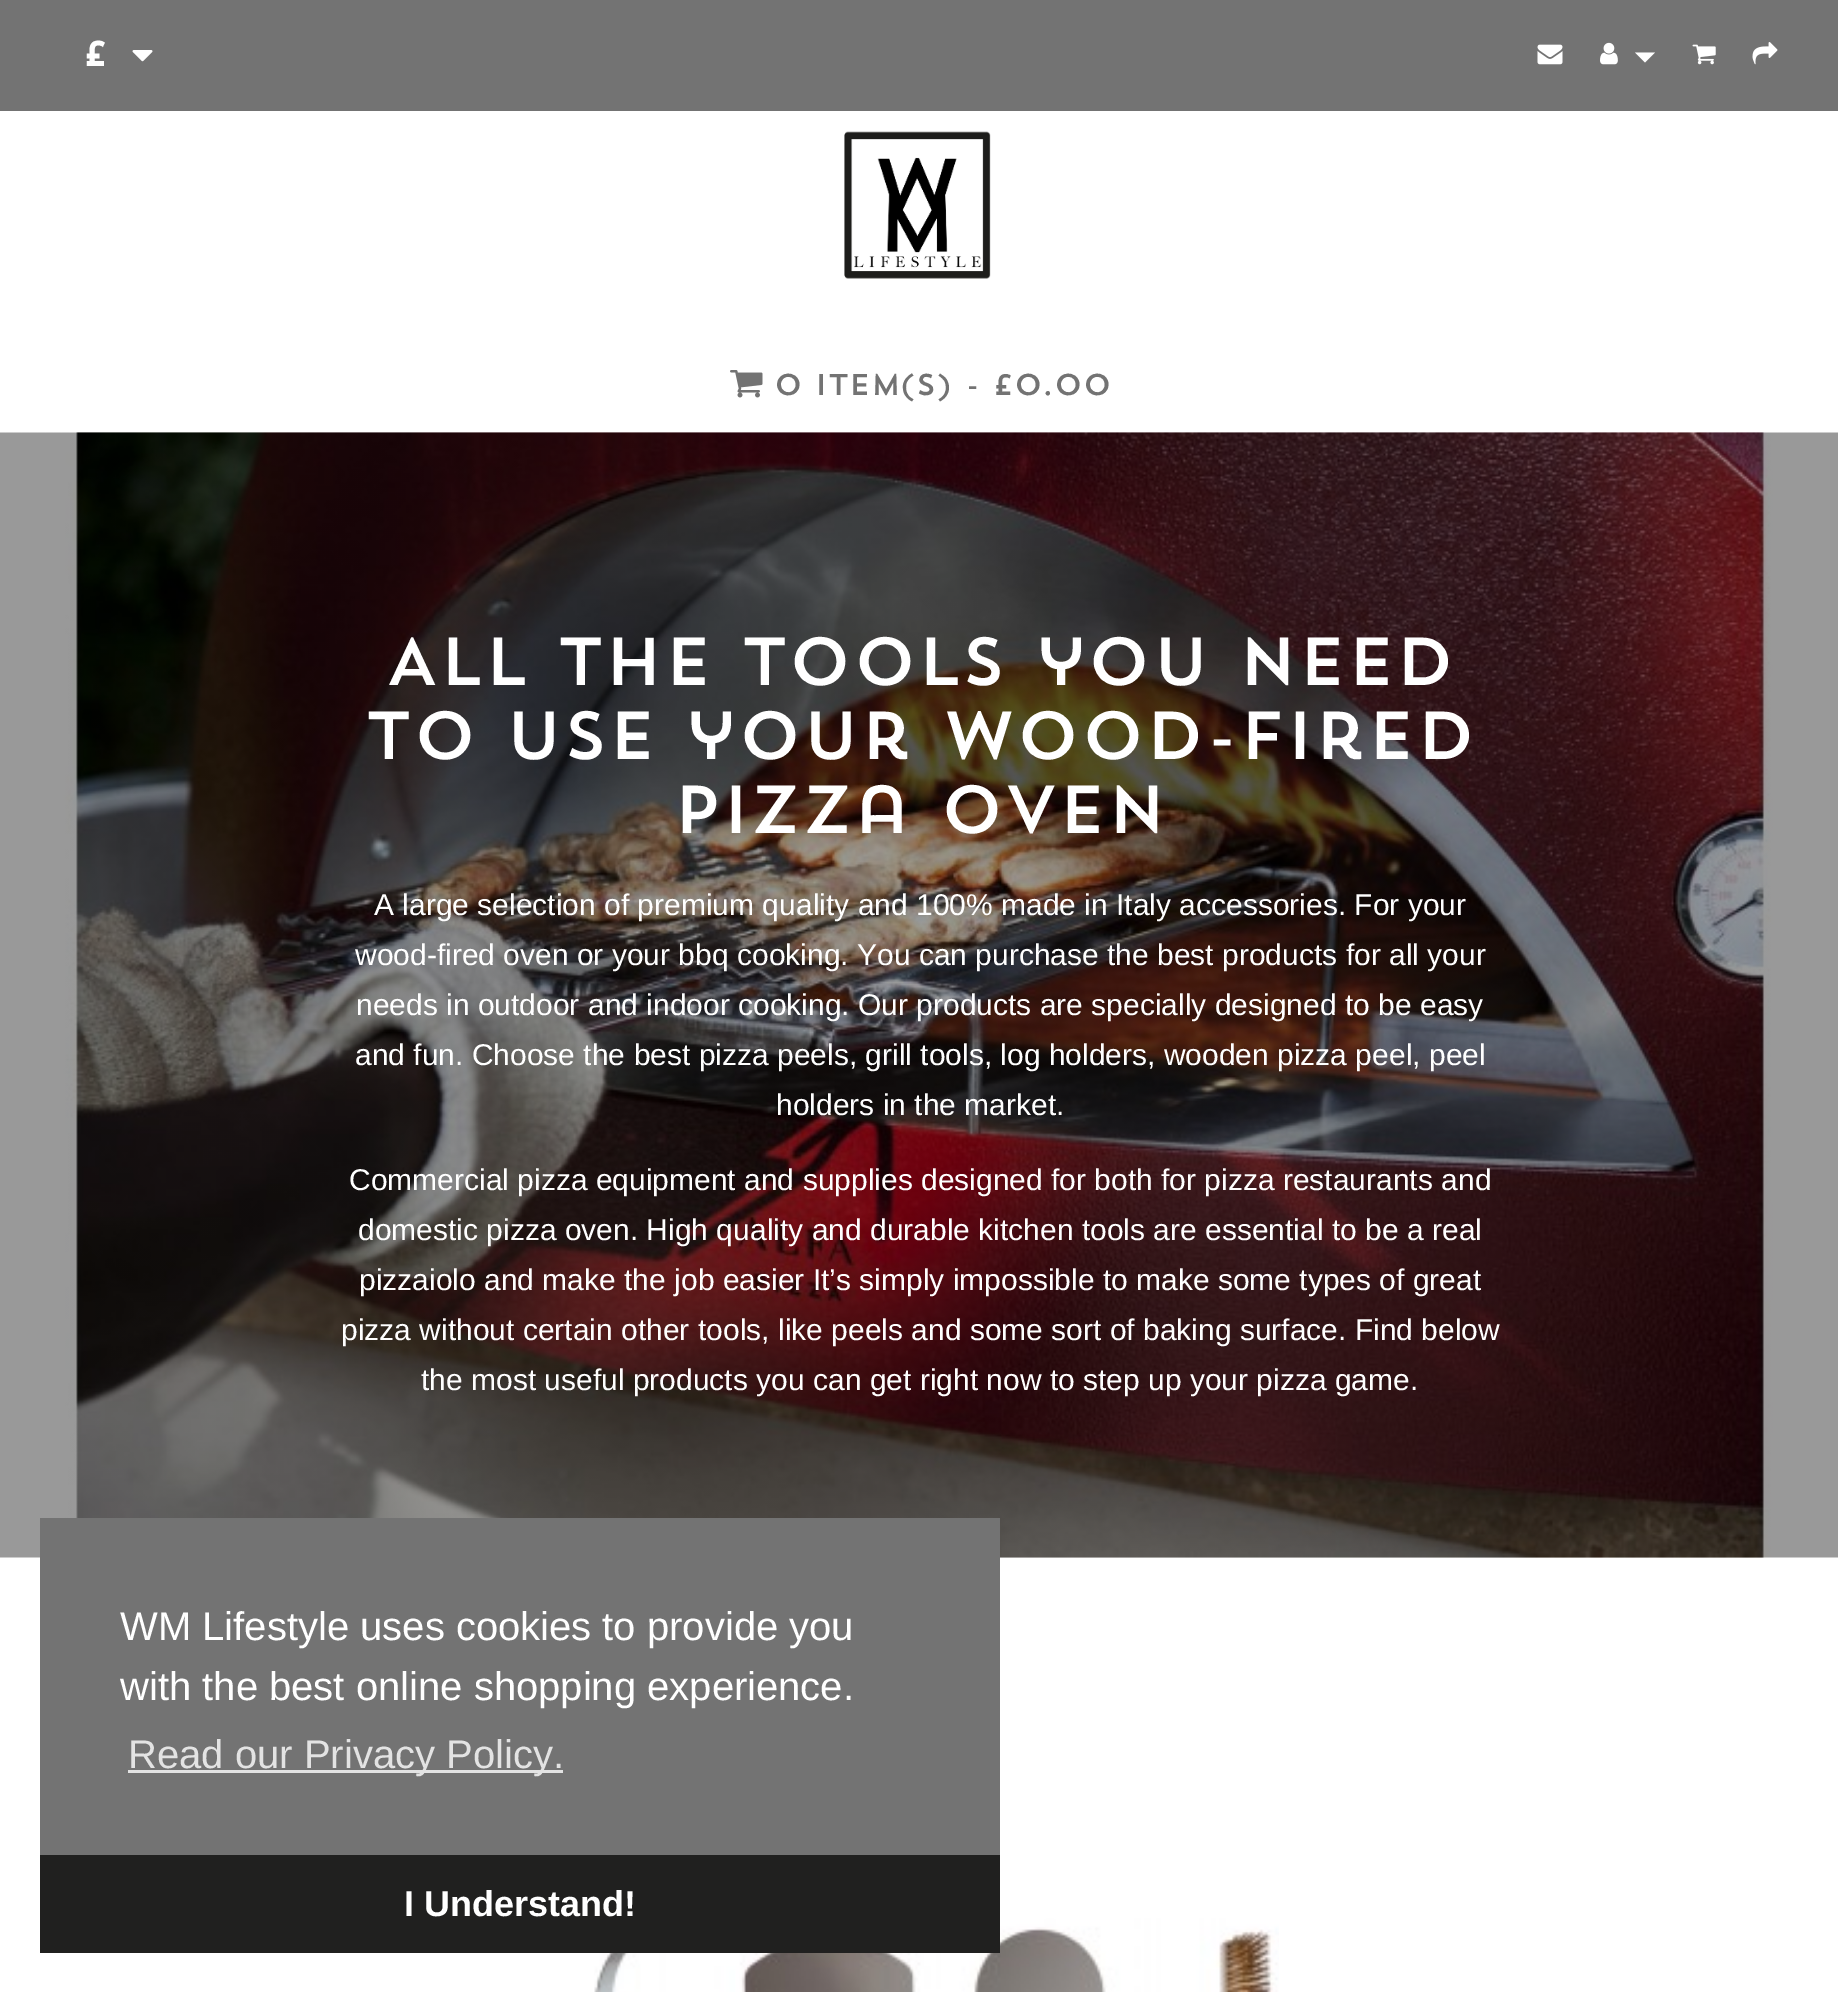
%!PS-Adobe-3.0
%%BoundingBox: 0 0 1838 1992
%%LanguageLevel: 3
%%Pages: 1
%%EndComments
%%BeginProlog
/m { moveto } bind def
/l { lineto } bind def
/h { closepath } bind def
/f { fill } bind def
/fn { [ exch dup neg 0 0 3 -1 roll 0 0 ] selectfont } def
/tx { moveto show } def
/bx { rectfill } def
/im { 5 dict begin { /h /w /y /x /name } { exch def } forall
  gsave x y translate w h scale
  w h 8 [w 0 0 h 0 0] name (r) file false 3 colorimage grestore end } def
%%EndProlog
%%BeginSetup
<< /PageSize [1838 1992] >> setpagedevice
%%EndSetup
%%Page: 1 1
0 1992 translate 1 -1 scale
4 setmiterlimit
1 setgray
0 0 1838 1992 bx
0.451 setgray
0 0 1838 111 bx
/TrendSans-Bold 35 fn
1 setgray
(£) 83 66 tx
(image0.raw) 132 50 21 12 im
(image1.raw) 1537 44 26 21 im
(image2.raw) 1600 42 18 23 im
1635 52.5 m 1655 52.5 l 1645 62.5 l h f
(image3.raw) 1692 44 24 21 im
(image4.raw) 1752 42 26 23 im
(image5.raw) 844 131 147 148 im
(image6.raw) 730 370 33 28 im
/TrendSans-ExtraLight 30 fn
0.451 setgray
(0 item\(s\) - £0.00) 774 395 tx
(image7.raw) 0 432 1838 1126 im
/TrendSans-ExtraLight 67.5 fn
1 setgray
(All the tools you need) 385 685 tx
(to use your wood-fired) 365 759 tx
(pizza oven) 673 833 tx
/LiberationSans-Regular 30 fn
(A large selection of premium quality and 100% made in Italy accessories. For your) 374 915 tx
(wood-fired oven or your bbq cooking. You can purchase the best products for all your) 355 965 tx
(needs in outdoor and indoor cooking. Our products are specially designed to be easy) 356 1015 tx
(and fun. Choose the best pizza peels, grill tools, log holders, wooden pizza peel, peel) 355 1065 tx
(holders in the market.) 776 1115 tx
(Commercial pizza equipment and supplies designed for both for pizza restaurants and) 349 1190 tx
(domestic pizza oven. High quality and durable kitchen tools are essential to be a real) 358 1240 tx
(pizzaiolo and make the job easier It’s simply impossible to make some types of great) 359 1290 tx
(pizza without certain other tools, like peels and some sort of baking surface. Find below) 341 1340 tx
(the most useful products you can get right now to step up your pizza game.) 421 1390 tx
(image8.raw) 594 1918 685 74 im
0.451 setgray
40 1518 960 337 bx
/LiberationSans-Regular 40 fn
1 setgray
(WM Lifestyle uses cookies to provide you) 120 1640 tx
(with the best online shopping experience.) 120 1700 tx
0.89 setgray
128 1770 435 3 bx
(Read our Privacy Policy.) 128 1768 tx
0.125 0.125 0.122 setrgbcolor
40 1855 960 98 bx
/LiberationSans-Bold 36 fn
1 setgray
(I Understand!) 404 1916 tx
showpage
%%EOF
